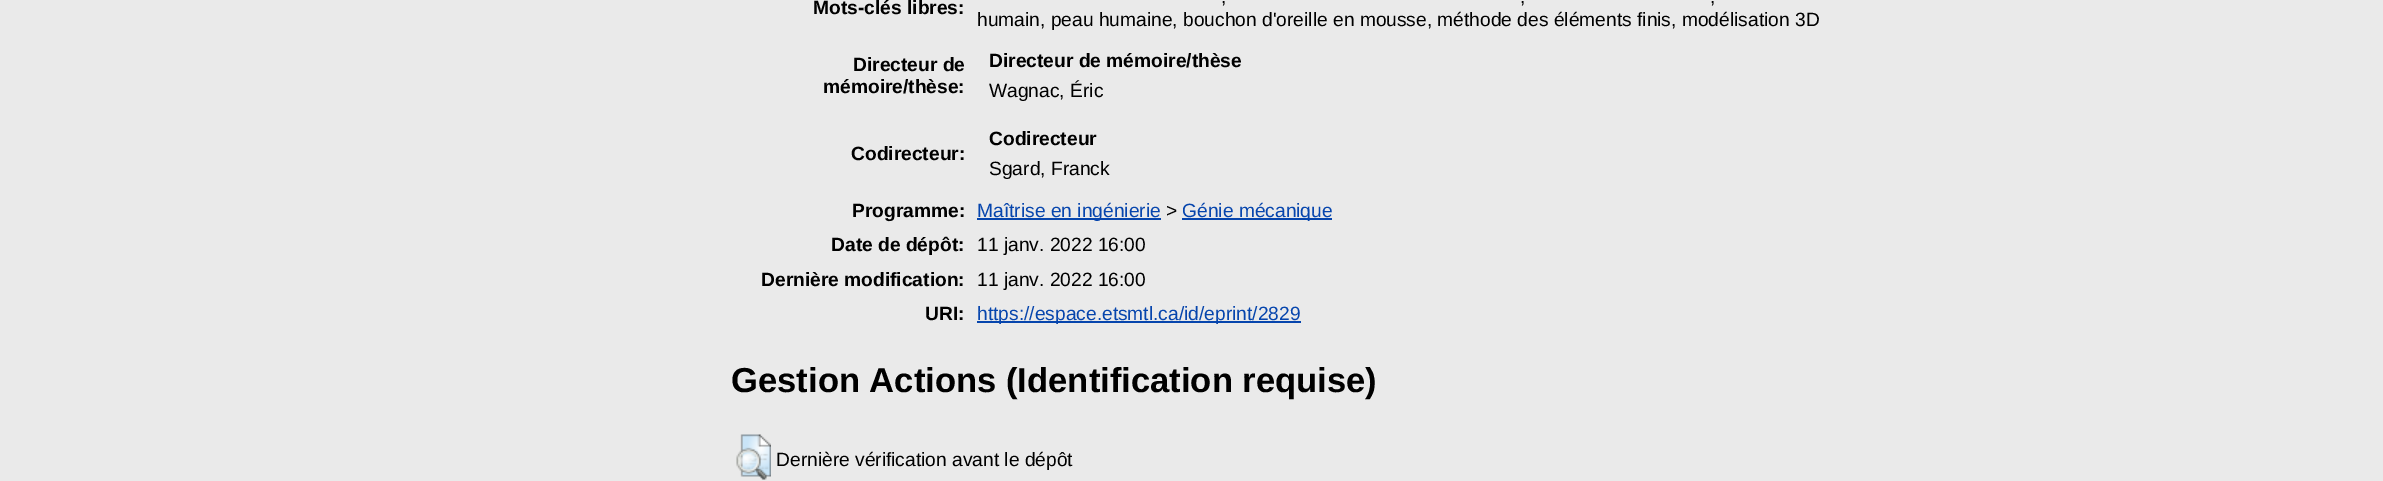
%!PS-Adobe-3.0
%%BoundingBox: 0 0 2383 481
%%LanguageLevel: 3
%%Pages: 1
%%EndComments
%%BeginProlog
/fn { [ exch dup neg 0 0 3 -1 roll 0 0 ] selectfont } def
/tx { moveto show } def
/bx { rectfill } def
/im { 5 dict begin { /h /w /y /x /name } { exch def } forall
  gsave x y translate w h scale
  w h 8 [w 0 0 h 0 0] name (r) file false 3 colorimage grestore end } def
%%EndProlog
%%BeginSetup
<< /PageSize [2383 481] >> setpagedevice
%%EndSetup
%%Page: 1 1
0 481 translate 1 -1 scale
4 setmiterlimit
0.918 setgray
0 0 2383 481 bx
/LiberationSans-Bold 19.2 fn
0 setgray
(Mots-clés libres:) 813 14 tx
/LiberationSans-Regular 19.2 fn
(,) 1221 3 tx
(,) 1520 3 tx
(,) 1710 3 tx
(humain, peau humaine, bouchon d'oreille en mousse, méthode des éléments finis, modélisation 3D) 977 26 tx
/LiberationSans-Bold 19.2 fn
(Directeur de) 853 71 tx
(mémoire/thèse:) 823 93 tx
(Directeur de mémoire/thèse) 989 67 tx
/LiberationSans-Regular 19.2 fn
(Wagnac, Éric) 989 97 tx
/LiberationSans-Bold 19.2 fn
(Codirecteur:) 851 160 tx
(Codirecteur) 989 145 tx
/LiberationSans-Regular 19.2 fn
(Sgard, Franck) 989 175 tx
/LiberationSans-Bold 19.2 fn
(Programme:) 852 217 tx
0.024 0.271 0.678 setrgbcolor
977 218 184 2 bx
/LiberationSans-Regular 19.2 fn
(Maîtrise en ingénierie) 977 217 tx
0 setgray
(>) 1166 217 tx
0.024 0.271 0.678 setrgbcolor
1182 218 150 2 bx
(Génie mécanique) 1182 217 tx
/LiberationSans-Bold 19.2 fn
0 setgray
(Date de dépôt:) 831 251 tx
/LiberationSans-Regular 19.2 fn
(11 janv. 2022 16:00) 977 251 tx
/LiberationSans-Bold 19.2 fn
(Dernière modification:) 761 286 tx
/LiberationSans-Regular 19.2 fn
(11 janv. 2022 16:00) 977 286 tx
/LiberationSans-Bold 19.2 fn
(URI:) 925 320 tx
0.024 0.271 0.678 setrgbcolor
977 321 324 2 bx
/LiberationSans-Regular 19.2 fn
(https://espace.etsmtl.ca/id/eprint/2829) 977 320 tx
/LiberationSans-Bold 34.6 fn
0 setgray
(Gestion Actions \(Identification requise\)) 731 392 tx
(image0.raw) 736 434 35 46 im
/LiberationSans-Regular 19.2 fn
(Dernière vérification avant le dépôt) 776 466 tx
showpage
%%EOF
